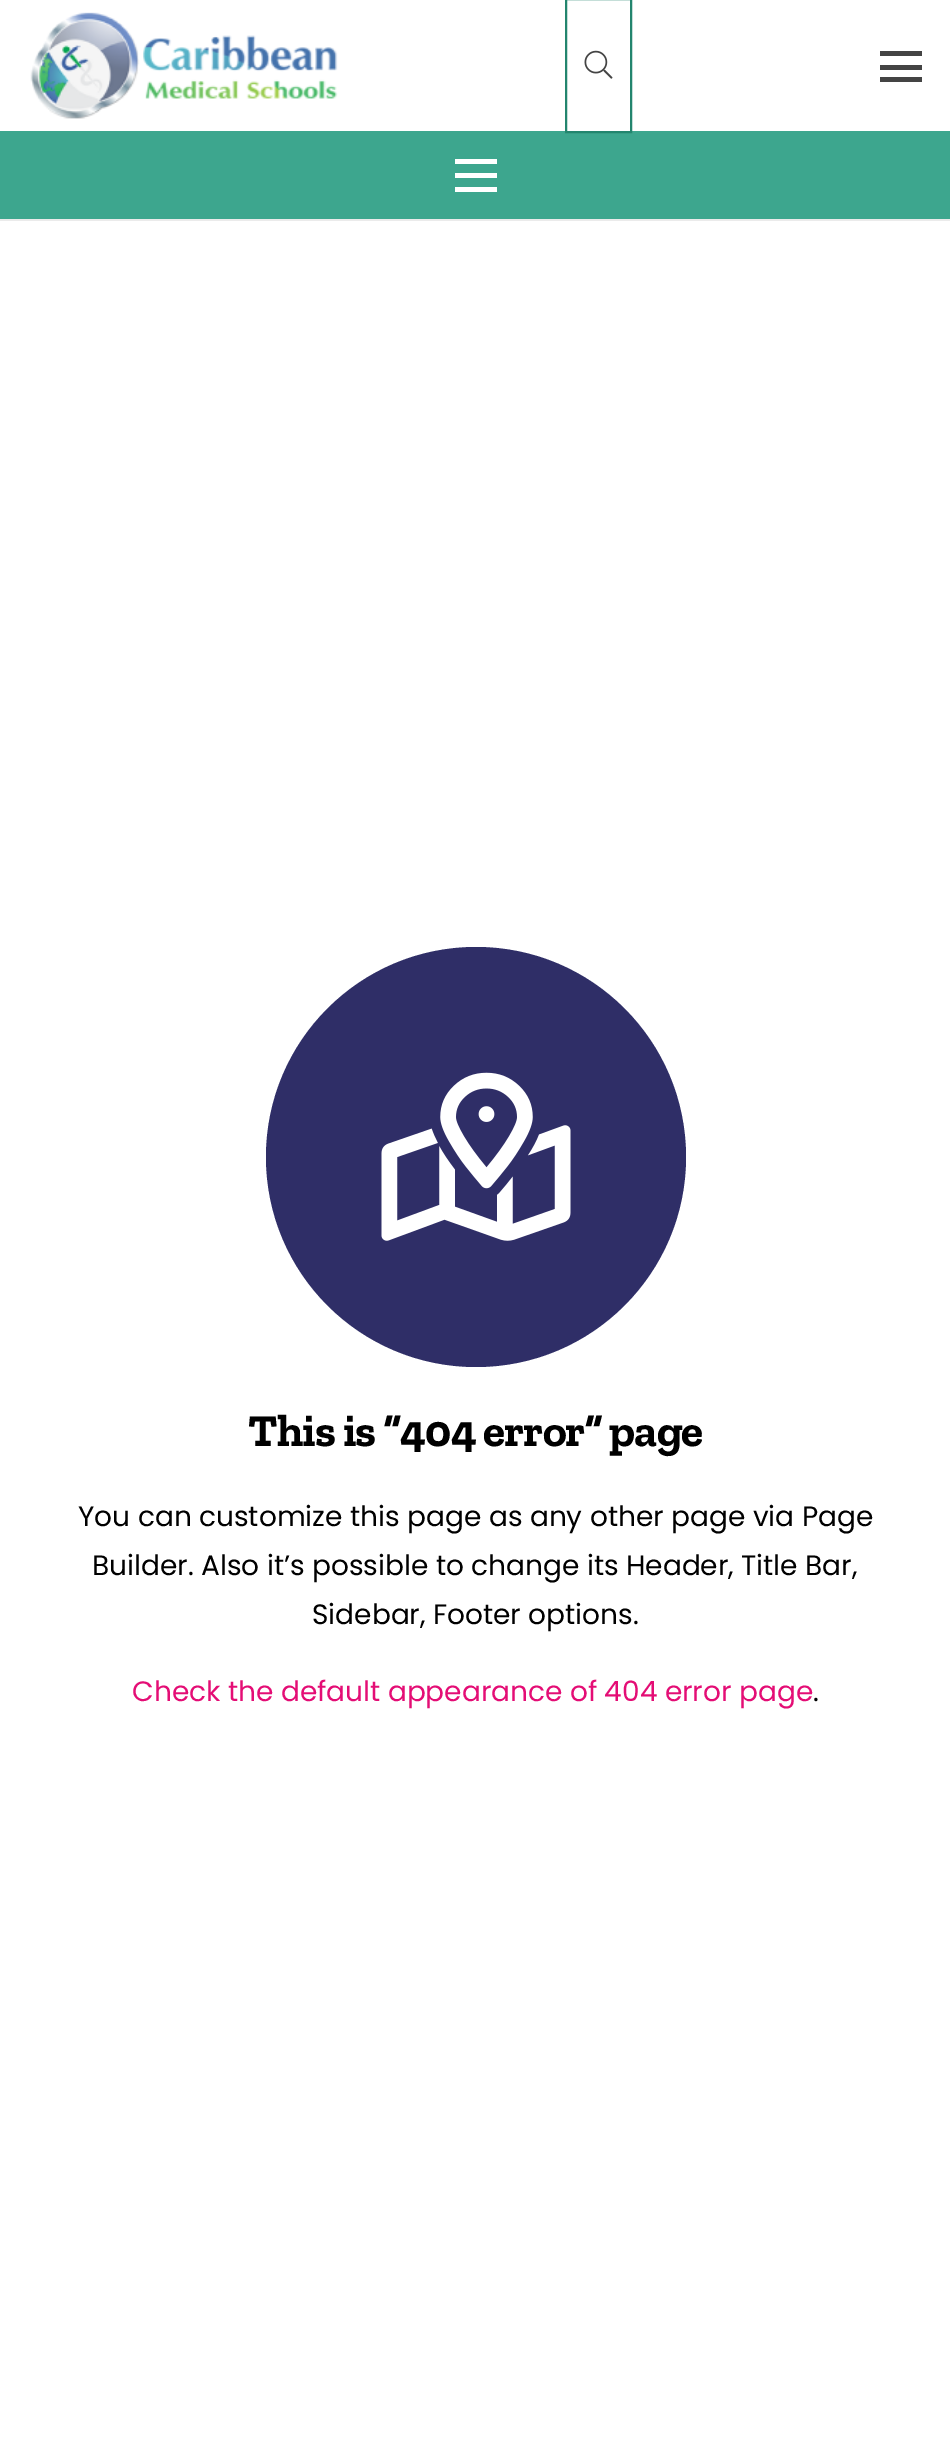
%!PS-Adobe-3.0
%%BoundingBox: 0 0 950 2444
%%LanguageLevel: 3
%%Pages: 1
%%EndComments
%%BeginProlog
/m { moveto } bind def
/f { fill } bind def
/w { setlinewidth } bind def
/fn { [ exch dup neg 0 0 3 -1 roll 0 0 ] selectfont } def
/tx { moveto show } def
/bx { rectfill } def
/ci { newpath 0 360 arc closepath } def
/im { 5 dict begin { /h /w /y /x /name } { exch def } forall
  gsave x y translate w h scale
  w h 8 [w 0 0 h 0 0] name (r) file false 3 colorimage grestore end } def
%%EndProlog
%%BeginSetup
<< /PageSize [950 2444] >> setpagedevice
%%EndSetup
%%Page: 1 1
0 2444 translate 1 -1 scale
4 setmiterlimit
1 setgray
0 0 950 2444 bx
(image0.raw) 30 12 308 107 im
0.239 0.651 0.557 setrgbcolor
0 131 950 88 bx
0.137 0.522 0.431 setrgbcolor
2 w
566 -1 65 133 rectstroke
(image1.raw) 584 50 29 29 im
0.267 setgray
880 65 42 5 bx
880 51 42 5 bx
880 77 42 5 bx
0.922 setgray
0 219 950 2 bx
1 setgray
455 173 42 5 bx
455 159 42 5 bx
455 187 42 5 bx
0.184 0.18 0.404 setrgbcolor
476 1157 210 ci f
(image2.raw) 381 1072 190 169 im
/ZillaSlab-Bold 45.5 fn
0 setgray
248 1446 m -0.9 0 (This is “404 error” page) ashow
/Poppins-Regular 28 fn
(You can customize this page as any other page via Page) 78 1526 tx
(Builder. Also it’s possible to change its Header, Title Bar,) 92 1575 tx
(Sidebar, Footer options.) 312 1624 tx
0.894 0.051 0.459 setrgbcolor
(Check the default appearance of 404 error page) 132 1701 tx
0 setgray
(.) 813 1701 tx
showpage
%%EOF
